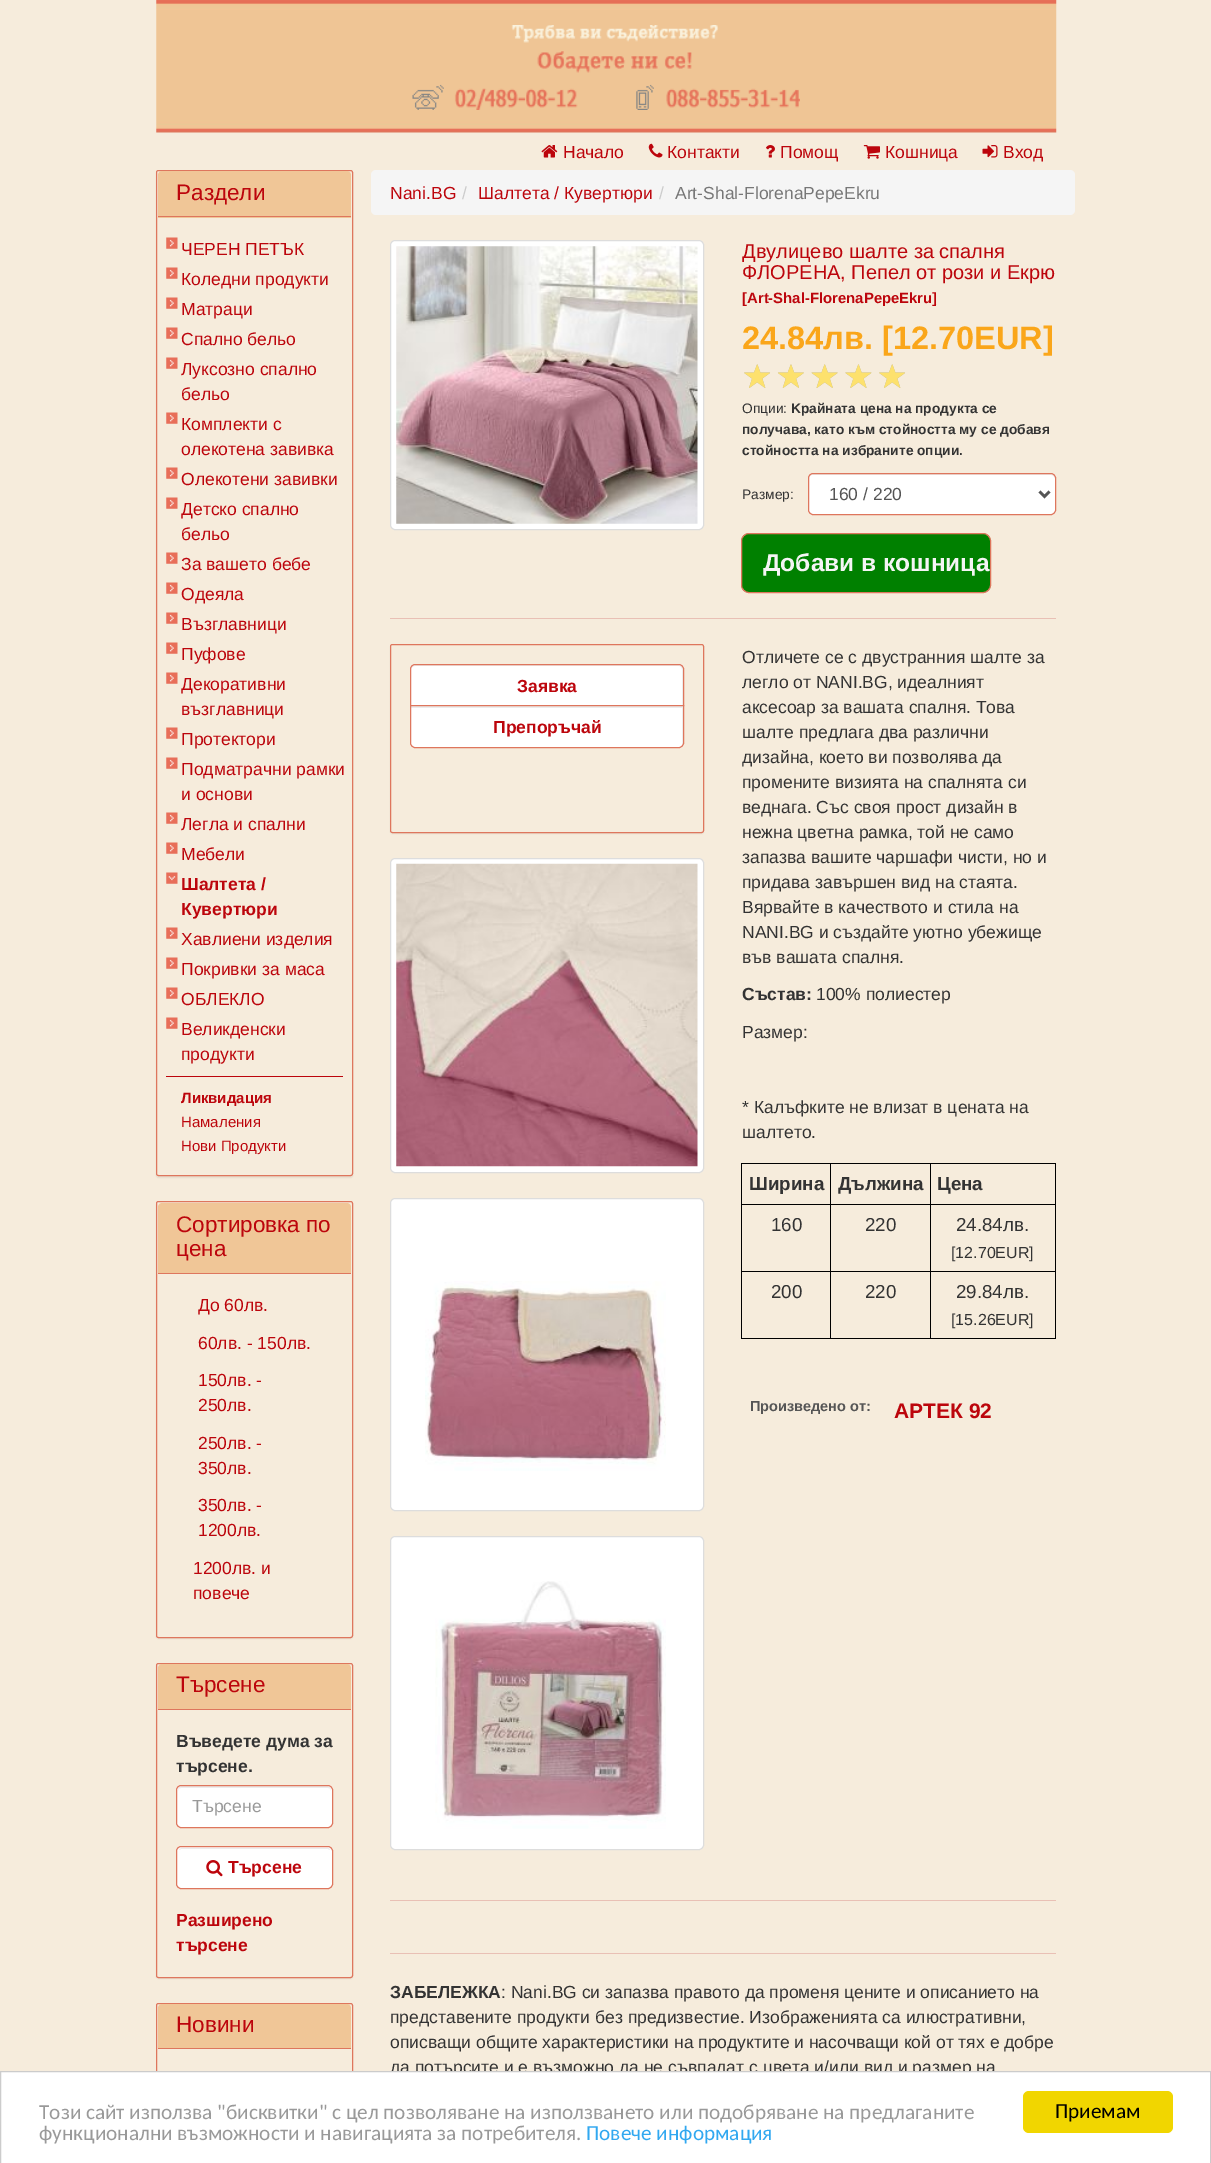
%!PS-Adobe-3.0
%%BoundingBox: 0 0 1211 2163
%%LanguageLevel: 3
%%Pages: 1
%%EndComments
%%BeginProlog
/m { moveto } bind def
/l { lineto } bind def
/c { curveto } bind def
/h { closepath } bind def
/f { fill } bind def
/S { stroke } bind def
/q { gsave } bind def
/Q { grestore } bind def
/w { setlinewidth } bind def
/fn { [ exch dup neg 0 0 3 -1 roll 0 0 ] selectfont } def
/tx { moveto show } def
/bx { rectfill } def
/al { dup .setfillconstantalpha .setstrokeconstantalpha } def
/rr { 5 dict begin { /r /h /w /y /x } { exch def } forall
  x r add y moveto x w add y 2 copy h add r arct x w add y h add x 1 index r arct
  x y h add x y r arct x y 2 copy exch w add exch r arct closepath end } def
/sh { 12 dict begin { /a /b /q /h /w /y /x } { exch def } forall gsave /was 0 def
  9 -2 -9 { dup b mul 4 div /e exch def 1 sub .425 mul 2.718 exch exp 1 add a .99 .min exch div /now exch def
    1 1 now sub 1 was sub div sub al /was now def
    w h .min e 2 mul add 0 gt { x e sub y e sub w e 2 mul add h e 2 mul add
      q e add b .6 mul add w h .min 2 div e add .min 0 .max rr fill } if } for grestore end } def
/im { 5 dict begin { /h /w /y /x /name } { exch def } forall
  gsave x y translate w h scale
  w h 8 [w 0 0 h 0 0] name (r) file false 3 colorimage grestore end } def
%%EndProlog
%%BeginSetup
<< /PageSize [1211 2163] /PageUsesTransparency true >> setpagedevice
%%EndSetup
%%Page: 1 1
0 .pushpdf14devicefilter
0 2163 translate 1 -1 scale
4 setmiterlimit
0.965 0.925 0.863 setrgbcolor
0 0 1211 2163 bx
(image0.raw) 156 0 901 133 im
(image1.raw) 412 25 388 85 im
(image2.raw) 541 145 17 13 im
/LiberationSans-Regular 17.5 fn
0.737 0.02 0.047 setrgbcolor
(Начало) 563 158 tx
(image3.raw) 648 143 15 15 im
(Контакти) 667 158 tx
(image4.raw) 766 145 9 13 im
(Помощ) 780 158 tx
(image5.raw) 863 145 17 14 im
(Кошница) 885 158 tx
(image6.raw) 982 145 16 13 im
(Вход) 1003 158 tx
q
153 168 m 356 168 l 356 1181 l 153 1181 l h 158.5 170 m 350.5 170 l 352 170 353 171 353 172.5 c 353 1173.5 l 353 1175 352 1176 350.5 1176 c 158.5 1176 l 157 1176 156 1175 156 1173.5 c 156 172.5 l 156 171 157 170 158.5 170 c h eoclip newpath
0 setgray
156 171 197 1007 2.5 0.5 0.05 sh
Q
0.871 0.463 0.365 setrgbcolor
156.5 170.5 196 1005 2 rr S
0.941 0.776 0.592 setrgbcolor
162 171 m 347 171 l 349 171 351 173 351 175 c 351 218 l 158 218 l 158 175 l 158 173 160 171 162 171 c h f
0.871 0.463 0.365 setrgbcolor
158 216 193 1 bx
/LiberationSans-Regular 22.5 fn
0.737 0.02 0.047 setrgbcolor
(Раздели) 176 200 tx
(image7.raw) 166 237 12 12 im
/LiberationSans-Regular 17.5 fn
(ЧЕРЕН ПЕТЪК) 181 255 tx
(image7.raw) 166 267 12 12 im
(Коледни продукти) 181 285 tx
(image7.raw) 166 297 12 12 im
(Матраци) 181 315 tx
(image7.raw) 166 327 12 12 im
(Спално бельо) 181 345 tx
(image7.raw) 166 357 12 12 im
(Луксозно спално) 181 375 tx
(бельо) 181 400 tx
(image7.raw) 166 412 12 12 im
(Комплекти с) 181 430 tx
(олекотена завивка) 181 455 tx
(image7.raw) 166 467 12 12 im
(Олекотени завивки) 181 485 tx
(image7.raw) 166 497 12 12 im
(Детско спално) 181 515 tx
(бельо) 181 540 tx
(image7.raw) 166 552 12 12 im
(За вашето бебе) 181 570 tx
(image7.raw) 166 582 12 12 im
(Одеяла) 181 600 tx
(image7.raw) 166 612 12 12 im
(Възглавници) 181 630 tx
(image7.raw) 166 642 12 12 im
(Пуфове) 181 660 tx
(image7.raw) 166 672 12 12 im
(Декоративни) 181 690 tx
(възглавници) 181 715 tx
(image7.raw) 166 727 12 12 im
(Протектори) 181 745 tx
(image7.raw) 166 757 12 12 im
(Подматрачни рамки) 181 775 tx
(и основи) 181 800 tx
(image7.raw) 166 812 12 12 im
(Легла и спални) 181 830 tx
(image7.raw) 166 842 12 12 im
(Мебели) 181 860 tx
(image8.raw) 166 872 12 12 im
/LiberationSans-Bold 17.5 fn
(Шалтета /) 181 890 tx
(Кувертюри) 181 915 tx
(image7.raw) 166 927 12 12 im
/LiberationSans-Regular 17.5 fn
(Хавлиени изделия) 181 945 tx
(image7.raw) 166 957 12 12 im
(Покривки за маса) 181 975 tx
(image7.raw) 166 987 12 12 im
(ОБЛЕКЛО) 181 1005 tx
(image7.raw) 166 1017 12 12 im
(Великденски) 181 1035 tx
(продукти) 181 1060 tx
166 1076 177 1 bx
/LiberationSans-Bold 15 fn
(Ликвидация) 181 1103 tx
/LiberationSans-Regular 15 fn
(Намаления) 181 1127 tx
(Нови Продукти) 181 1151 tx
q
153 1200 m 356 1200 l 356 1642 l 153 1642 l h 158.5 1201 m 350.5 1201 l 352 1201 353 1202 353 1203.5 c 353 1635.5 l 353 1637 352 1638 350.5 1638 c 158.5 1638 l 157 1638 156 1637 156 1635.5 c 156 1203.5 l 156 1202 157 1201 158.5 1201 c h eoclip newpath
0 setgray
156 1203 197 436 2.5 0.5 0.05 sh
Q
0.871 0.463 0.365 setrgbcolor
156.5 1201.5 196 436 2 rr S
0.941 0.776 0.592 setrgbcolor
162 1203 m 347 1203 l 349 1203 351 1205 351 1207 c 351 1274 l 158 1274 l 158 1207 l 158 1205 160 1203 162 1203 c h f
0.871 0.463 0.365 setrgbcolor
158 1273 193 1 bx
/LiberationSans-Regular 22.5 fn
0.737 0.02 0.047 setrgbcolor
(Сортировка по) 176 1232 tx
(цена) 176 1256 tx
/LiberationSans-Regular 17.5 fn
(До 60лв.) 198 1311 tx
(60лв. - 150лв.) 198 1349 tx
(150лв. -) 198 1386 tx
(250лв.) 198 1411 tx
(250лв. -) 198 1449 tx
(350лв.) 198 1474 tx
(350лв. -) 198 1511 tx
(1200лв.) 198 1536 tx
(1200лв. и) 193 1574 tx
(повече) 193 1599 tx
q
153 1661 m 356 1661 l 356 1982 l 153 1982 l h 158.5 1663 m 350.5 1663 l 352 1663 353 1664 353 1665.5 c 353 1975.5 l 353 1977 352 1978 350.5 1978 c 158.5 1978 l 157 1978 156 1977 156 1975.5 c 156 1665.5 l 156 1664 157 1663 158.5 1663 c h eoclip newpath
0 setgray
156 1664 197 315 2.5 0.5 0.05 sh
Q
0.871 0.463 0.365 setrgbcolor
156.5 1663.5 196 314 2 rr S
0.941 0.776 0.592 setrgbcolor
162 1664 m 347 1664 l 349 1664 351 1666 351 1668 c 351 1710 l 158 1710 l 158 1668 l 158 1666 160 1664 162 1664 c h f
0.871 0.463 0.365 setrgbcolor
158 1709 193 1 bx
/LiberationSans-Regular 22.5 fn
0.737 0.02 0.047 setrgbcolor
(Търсене) 176 1692 tx
/LiberationSans-Bold 17.5 fn
0.2 setgray
(Въведете дума за) 176 1747 tx
(търсене.) 176 1772 tx
1 setgray
176 1785 157 43 5 rr f
0.925 setgray
181 1788 m 328 1788 l 330 1788 331 1789 331 1791 c 331 1789 330 1787 328 1786 c 182 1786 l 179 1786 178 1788 178 1791 c 178 1789 179 1788 181 1788 c h f
0.871 0.463 0.365 setrgbcolor
176.5 1785.5 156 42 4.5 rr S
/LiberationSans-Regular 17.5 fn
0.6 setgray
(Търсене) 192 1812 tx
1 setgray
176 1846 157 43 5 rr f
0.925 setgray
181 1849 m 328 1849 l 330 1850 l 329 1848 l 182 1848 l 181 1848 179 1849 179 1850 c h f
0.871 0.463 0.365 setrgbcolor
176.5 1846.5 156 42 4.5 rr S
(image9.raw) 206 1860 17 17 im
/LiberationSans-Bold 17.5 fn
0.737 0.02 0.047 setrgbcolor
(Търсене) 228 1873 tx
(Разширено) 176 1926 tx
(търсене) 176 1951 tx
0.871 0.463 0.365 setrgbcolor
156.5 2003.5 196 159 2 rr S
0.941 0.776 0.592 setrgbcolor
162 2004 m 347 2004 l 349 2004 351 2006 351 2008 c 351 2049 l 158 2049 l 158 2008 l 158 2006 160 2004 162 2004 c h f
0.871 0.463 0.365 setrgbcolor
158 2048 193 1 bx
/LiberationSans-Regular 22.5 fn
0.737 0.02 0.047 setrgbcolor
(Новини) 176 2032 tx
0.961 setgray
371 170 704 45 5 rr f
/LiberationSans-Regular 17.5 fn
0.737 0.02 0.047 setrgbcolor
(Nani.BG) 390 199 tx
0.8 setgray
(/) 462 199 tx
0.737 0.02 0.047 setrgbcolor
(Шалтета / Кувертюри) 478 199 tx
0.8 setgray
(/) 659 199 tx
0.467 setgray
(Art-Shal-FlorenaPepeEkru) 675 199 tx
1 setgray
390.5 240.5 313 289 4.5 rr q f Q
0.867 setgray
S
(image10.raw) 396 246 302 278 im
/LiberationSans-Regular 20 fn
0.737 0.02 0.047 setrgbcolor
(Двулицево шалте за спалня) 742 258 tx
(ФЛОРЕНА, Пепел от рози и Екрю) 742 279 tx
/LiberationSans-Bold 14.9 fn
([Art-Shal-FlorenaPepeEkru]) 742 303 tx
/LiberationSans-Bold 32.5 fn
0.98 0.651 0.102 setrgbcolor
(24.84лв. [12.70EUR]) 742 349 tx
(image11.raw) 744 364 26 24 im
(image12.raw) 778 364 26 24 im
(image13.raw) 811 364 27 24 im
(image14.raw) 845 364 27 24 im
(image11.raw) 879 364 26 24 im
(image15.raw) 744 364 27 24 im
(image16.raw) 777 364 27 24 im
(image17.raw) 811 364 27 24 im
(image18.raw) 845 364 27 24 im
(image15.raw) 879 364 27 24 im
/LiberationSans-Regular 13.75 fn
0.2 setgray
(Опции:) 742 413 tx
/LiberationSans-Bold 13.75 fn
(Kрайната цена на продукта се) 791 413 tx
(получава, като към стойността му се добавя) 742 434 tx
(стойността на избраните опции.) 742 455 tx
/LiberationSans-Regular 13.75 fn
(Размер:) 742 499 tx
1 setgray
808 473 248 42 5 rr f
0.925 setgray
812 475 m 1051 475 l 1053 475 1055 477 1055 479 c 1055 478 l 1055 476 1053 474 1051 474 c 813 474 l 811 474 809 476 809 478 c 809 479 l 809 477 810 475 812 475 c h f
0.871 0.463 0.365 setrgbcolor
808.5 473.5 247 41 4.5 rr S
0.333 setgray
2.5 w
1039.5 491.5 m 1044.5 496.5 l 1049.5 491.5 l S
/LiberationSans-Regular 17.5 fn
(160 / 220) 829 500 tx
0 0.502 0 setrgbcolor
741.5 533.5 249 59 7.5 rr q f Q
0.871 0.463 0.365 setrgbcolor
1 w
S
/LiberationSans-Bold 24.5 fn
0.961 setgray
(Добави в кошница) 763 571 tx
0.914 0.753 0.71 setrgbcolor
390 618 666 1 bx
q
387 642 m 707 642 l 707 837 l 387 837 l h 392.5 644 m 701.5 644 l 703 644 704 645 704 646.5 c 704 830.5 l 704 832 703 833 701.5 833 c 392.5 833 l 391 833 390 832 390 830.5 c 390 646.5 l 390 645 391 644 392.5 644 c h eoclip newpath
0 setgray
390 645 314 189 2.5 0.5 0.05 sh
Q
0.871 0.463 0.365 setrgbcolor
390.5 644.5 313 188 2 rr S
1 setgray
415 664 m 679 664 l 682 664 684 666 684 669 c 684 706 l 410 706 l 410 669 l 410 666 412 664 415 664 c h f
0.925 setgray
415 666 m 679 666 l 681 666 682 668 682 670 c 682 705 l 683 705 l 683 669 l 683 667 681 665 679 665 c 415 665 l 413 665 411 667 411 669 c 411 670 l 411 668 413 666 415 666 c h f
0.871 0.463 0.365 setrgbcolor
415 664.5 m 679 664.5 l 681.5 664.5 683.5 666.5 683.5 669 c 683.5 705.5 l 410.5 705.5 l 410.5 669 l 410.5 666.5 412.5 664.5 415 664.5 c h S
/LiberationSans-Bold 17.5 fn
0.737 0.02 0.047 setrgbcolor
(Заявка) 517 692 tx
1 setgray
410 705 m 684 705 l 684 743 l 684 746 682 748 679 748 c 415 748 l 412 748 410 746 410 743 c h f
0.925 setgray
411 708 m 682 708 l 682 745 l 683 744 683 743 683 742 c 683 706 l 411 706 l h f
0.871 0.463 0.365 setrgbcolor
410.5 705.5 m 683.5 705.5 l 683.5 743 l 683.5 745.5 681.5 747.5 679 747.5 c 415 747.5 l 412.5 747.5 410.5 745.5 410.5 743 c h S
0.737 0.02 0.047 setrgbcolor
(Препоръчай) 493 733 tx
1 setgray
390.5 858.5 313 314 4.5 rr q f Q
0.867 setgray
S
(image19.raw) 396 863 302 304 im
1 setgray
390.5 1198.5 313 312 4.5 rr q f Q
0.867 setgray
S
(image20.raw) 425 1281 241 190 im
1 setgray
390.5 1536.5 313 313 4.5 rr q f Q
0.867 setgray
S
(image21.raw) 435 1581 231 248 im
/LiberationSans-Regular 17.5 fn
0.2 setgray
(Отличете се с двустранния шалте за) 742 663 tx
(легло от NANI.BG, идеалният) 742 688 tx
(аксесоар за вашата спалня. Това) 742 713 tx
(шалте предлага два различни) 742 738 tx
(дизайна, което ви позволява да) 742 763 tx
(промените визията на спалнята си) 742 788 tx
(веднага. Със своя прост дизайн в) 742 813 tx
(нежна цветна рамка, той не само) 742 838 tx
(запазва вашите чаршафи чисти, но и) 742 863 tx
(придава завършен вид на стаята.) 742 888 tx
(Вярвайте в качеството и стила на) 742 913 tx
(NANI.BG и създайте уютно убежище) 742 938 tx
(във вашата спалня.) 742 963 tx
/LiberationSans-Bold 17.5 fn
(Състав:) 742 1000 tx
/LiberationSans-Regular 17.5 fn
(100% полиестер) 816 1000 tx
(Размер:) 742 1038 tx
(* Калъфките не влизат в цената на) 742 1113 tx
(шалтето.) 742 1138 tx
0 setgray
741 1163 315 1 bx
1055 1163 1 176 bx
741 1338 315 1 bx
741 1163 1 176 bx
/LiberationSans-Bold 18.75 fn
0.2 setgray
(Ширина) 749 1190 tx
0 setgray
930 1204 126 1 bx
930 1271 126 1 bx
930 1271 1 68 bx
830 1271 101 1 bx
930 1204 1 69 bx
830 1204 101 1 bx
830 1271 1 68 bx
741 1271 90 1 bx
830 1204 1 69 bx
741 1204 90 1 bx
830 1163 1 42 bx
0.2 setgray
(Дължина) 838 1190 tx
0 setgray
930 1163 1 42 bx
0.2 setgray
(Цена) 937 1190 tx
/LiberationSans-Regular 18.75 fn
(160) 771 1231 tx
(220) 865 1231 tx
(24.84лв.) 956 1231 tx
/LiberationSans-Regular 16 fn
([12.70EUR]) 951 1258 tx
/LiberationSans-Regular 18.75 fn
(200) 771 1298 tx
(220) 865 1298 tx
(29.84лв.) 956 1298 tx
/LiberationSans-Regular 16 fn
([15.26EUR]) 951 1325 tx
/LiberationSans-Bold 14.5 fn
0.333 setgray
(Произведено от:) 750 1411 tx
/LiberationSans-Bold 21 fn
0.737 0.02 0.047 setrgbcolor
(АРТЕК 92) 894 1418 tx
0.914 0.753 0.71 setrgbcolor
390 1900 666 1 bx
390 1953 666 1 bx
/LiberationSans-Bold 17.5 fn
0.2 setgray
(ЗАБЕЛЕЖКА) 390 1998 tx
/LiberationSans-Regular 17.5 fn
(: Nani.BG си запазва правото да променя цените и описанието на) 501 1998 tx
(представените продукти без предизвестие. Изображенията са илюстративни,) 390 2023 tx
(описващи общите характеристики на продуктите и насочващи кой от тях е добре) 390 2048 tx
(да потърсите и е възможно да не съвпадат с цвета и/или вид и размер на) 390 2073 tx
1 setgray
0.5 2071.5 m 1210.5 2071.5 l 1210.5 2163.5 l 0.5 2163.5 l h q f Q
0.8 setgray
S
/Carlito-Regular 21.25 fn
0.6 setgray
(Този сайт използва "бисквитки" с цел позволяване на използването или подобряване на предлаганите) 39 2119 tx
(функционални възможности и навигацията за потребителя.) 39 2140 tx
0.192 0.659 0.941 setrgbcolor
(Повече информация) 586 2140 tx
0.945 0.839 0 setrgbcolor
1023 2091 150 42 6 rr f
0 setgray
(Приемам) 1055 2118 tx
.poppdf14devicefilter showpage
%%EOF
